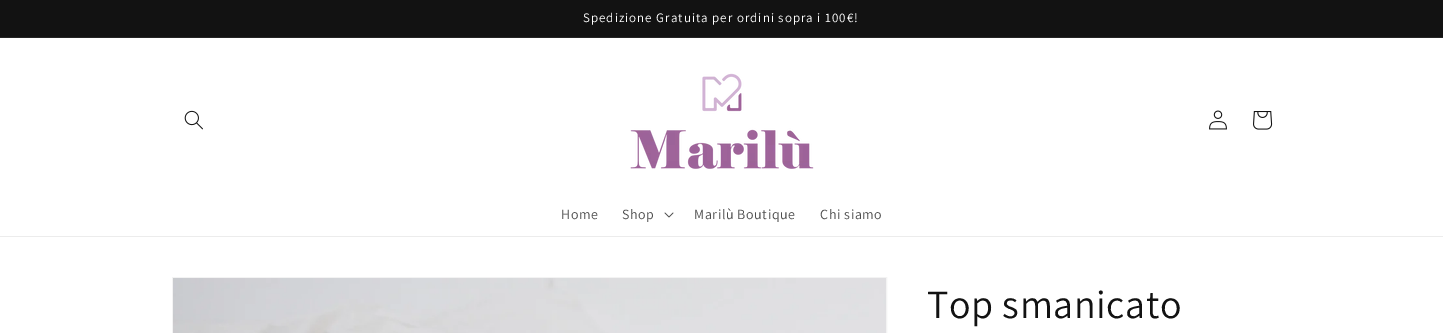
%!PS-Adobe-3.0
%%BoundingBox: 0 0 1443 333
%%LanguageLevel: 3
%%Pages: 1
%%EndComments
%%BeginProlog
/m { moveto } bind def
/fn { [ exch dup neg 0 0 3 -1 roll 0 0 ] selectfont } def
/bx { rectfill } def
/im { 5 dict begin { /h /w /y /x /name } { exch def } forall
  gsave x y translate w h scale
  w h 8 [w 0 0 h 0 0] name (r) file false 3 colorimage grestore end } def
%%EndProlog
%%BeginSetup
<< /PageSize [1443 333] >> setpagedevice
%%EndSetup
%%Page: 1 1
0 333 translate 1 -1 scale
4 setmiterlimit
1 setgray
0 0 1443 333 bx
0.071 setgray
0 0 1443 37 bx
0.145 setgray
0 37 1443 1 bx
/Assistant-Regular 13 fn
1 setgray
583 22 m 1 0 (Spedizione Gratuita per ordini sopra i 100€!) ashow
0.925 setgray
0 236 1443 1 bx
(image0.raw) 184 110 19 20 im
(image1.raw) 630 73 184 96 im
(image2.raw) 1209 110 18 20 im
(image3.raw) 1253 111 20 19 im
/Assistant-Regular 14 fn
0.302 setgray
561 219 m 0.6 0 (Home) ashow
622 219 m 0.6 0 (Shop) ashow
(image4.raw) 664 212 10 6 im
694 219 m 0.6 0 (Marilù Boutique) ashow
820 219 m 0.6 0 (Chi siamo) ashow
0.953 setgray
172.5 277.5 714 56 rectstroke
(image5.raw) 173 278 713 55 im
/Assistant-Regular 40 fn
0.071 setgray
927 318 m 0.6 0 (Top smanicato) ashow
showpage
%%EOF
